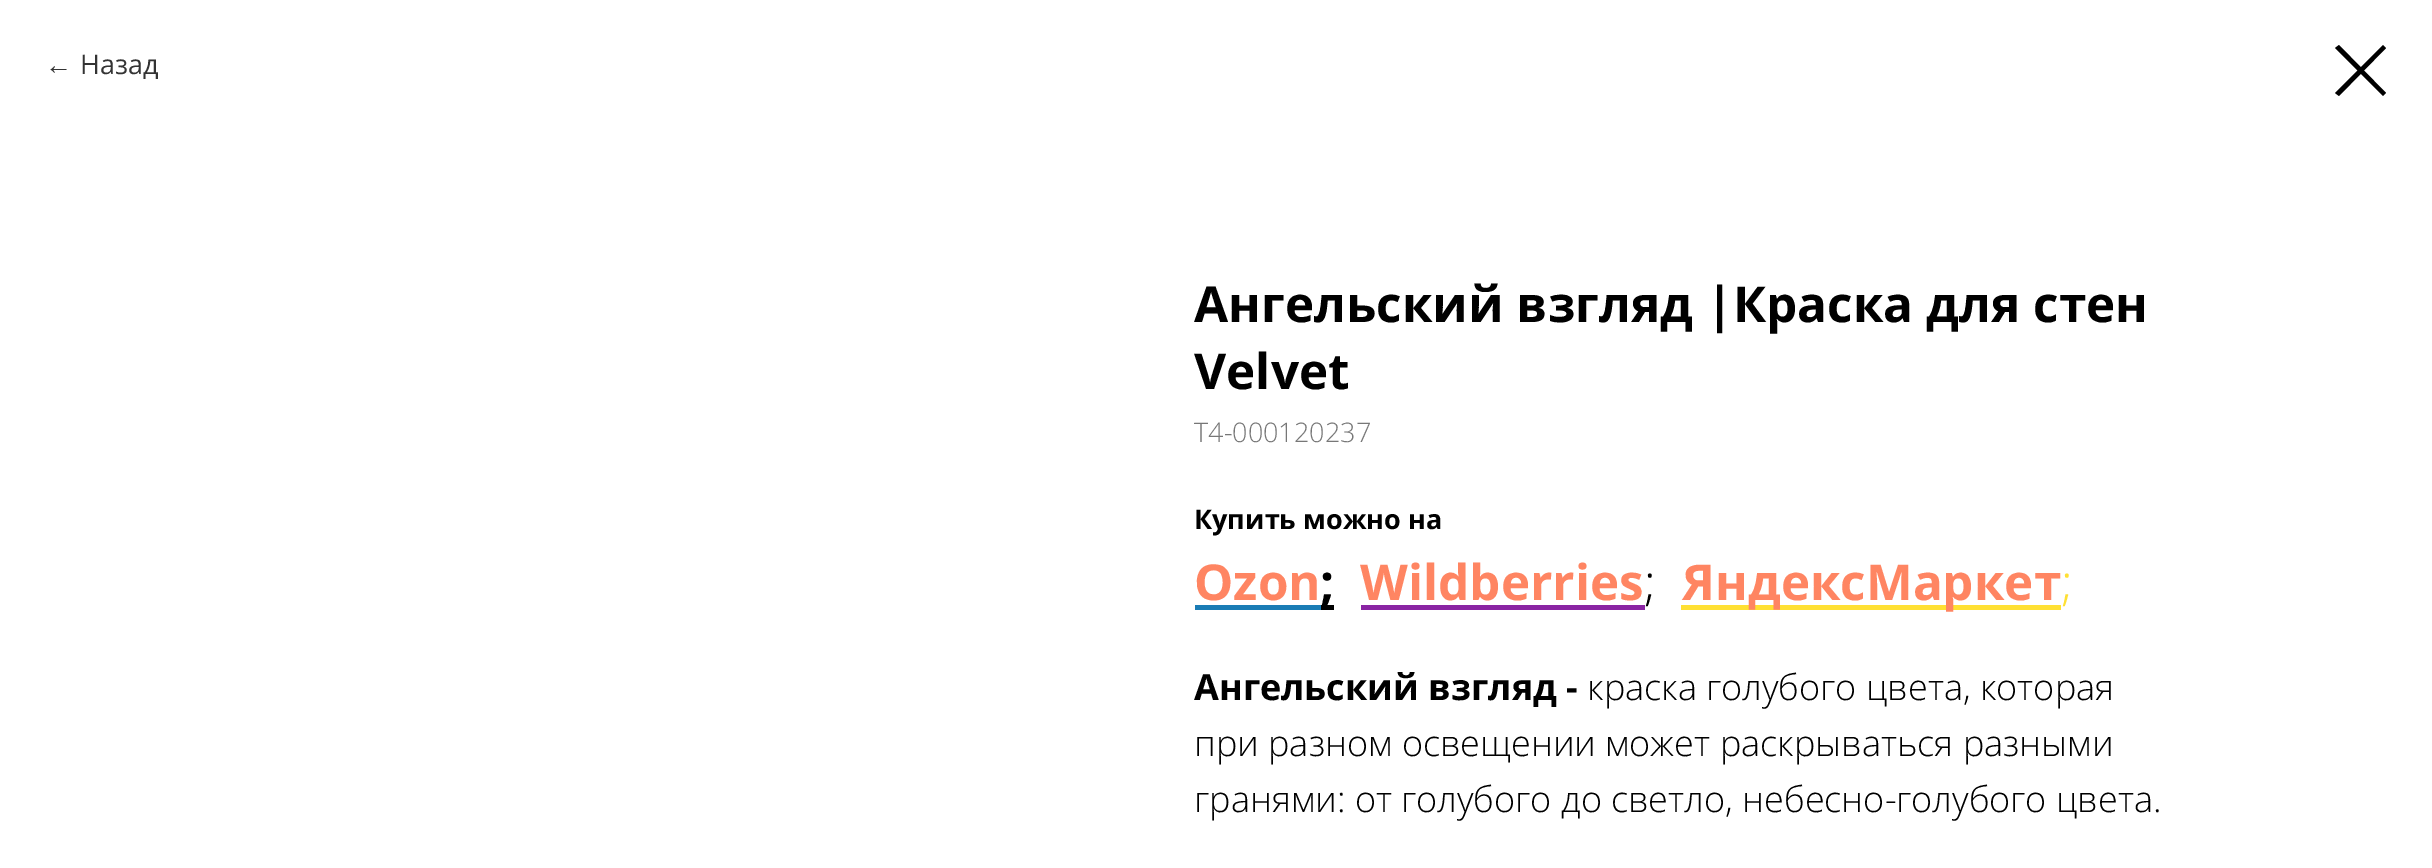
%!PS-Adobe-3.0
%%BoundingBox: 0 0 2432 868
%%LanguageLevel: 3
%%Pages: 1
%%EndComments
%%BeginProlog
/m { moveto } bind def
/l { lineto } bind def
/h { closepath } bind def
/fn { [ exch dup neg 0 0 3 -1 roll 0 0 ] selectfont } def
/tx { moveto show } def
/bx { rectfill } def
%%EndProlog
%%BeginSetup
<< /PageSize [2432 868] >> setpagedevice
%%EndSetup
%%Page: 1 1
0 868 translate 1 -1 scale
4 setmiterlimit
1 setgray
0 0 2432 868 bx
/LiberationSans-Regular 27 fn
0.2 setgray
(←) 45 74 tx
/OpenSans-Regular 27 fn
(Назад) 80 74 tx
0 setgray
2335 48 m 2339 45 l 2386 93 l 2383 96 l h eofill
2383 45 m 2386 48 l 2339 96 l 2335 93 l h eofill
/OpenSans-Bold 49.5 fn
(Ангельский взгляд |Краска для стен) 1194 322 tx
(Velvet) 1194 389 tx
/OpenSans-Light 27 fn
0.467 setgray
(T4-000120237) 1194 442 tx
/OpenSans-Bold 27 fn
0 setgray
(Купить можно на) 1194 529 tx
/OpenSans-Bold 49.5 fn
1 0.522 0.384 setrgbcolor
(Ozon) 1194 600 tx
0.102 0.486 0.71 setrgbcolor
1195 605 126 5 bx
0 setgray
1321 605 13 5 bx
(;) 1320 600 tx
1 0.522 0.384 setrgbcolor
(Wildberries) 1360 600 tx
0.541 0.141 0.639 setrgbcolor
1361 605 284 5 bx
/OpenSans-Light 49.5 fn
0 setgray
(;) 1644 600 tx
1 0.878 0.2 setrgbcolor
1681 605 380 5 bx
/OpenSans-Bold 49.5 fn
1 0.522 0.384 setrgbcolor
(ЯндексМаркет) 1682 600 tx
/OpenSans-Light 49.5 fn
1 0.878 0.2 setrgbcolor
(;) 2061 600 tx
/OpenSans-Bold 36 fn
0 setgray
(Ангельский взгляд -) 1194 700 tx
/OpenSans-Light 36 fn
(краска голубого цвета, которая) 1587 700 tx
(при разном освещении может раскрываться разными) 1194 756 tx
(гранями: от голубого до светло, небесно-голубого цвета.) 1194 812 tx
showpage
%%EOF
